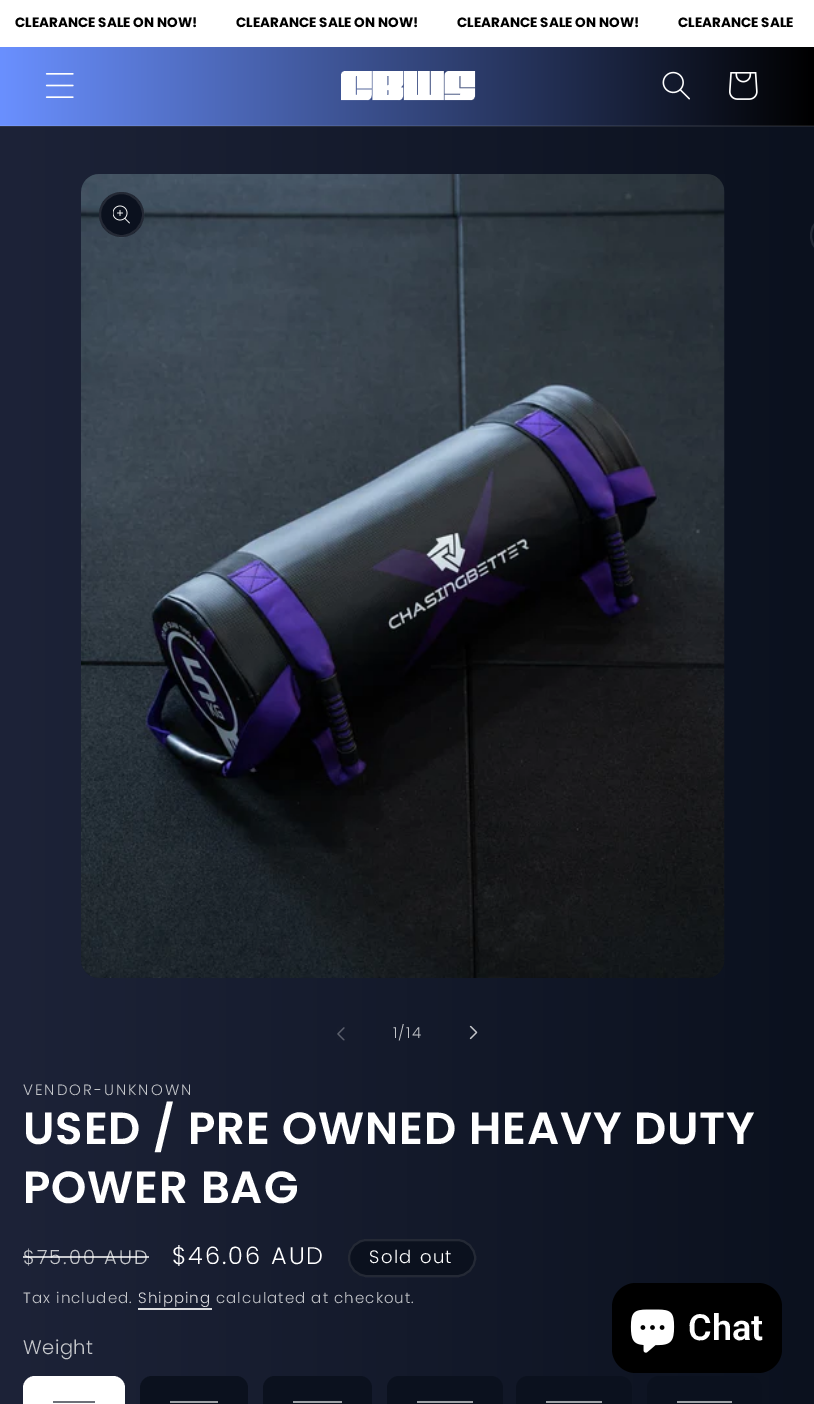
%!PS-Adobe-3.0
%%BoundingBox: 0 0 814 1404
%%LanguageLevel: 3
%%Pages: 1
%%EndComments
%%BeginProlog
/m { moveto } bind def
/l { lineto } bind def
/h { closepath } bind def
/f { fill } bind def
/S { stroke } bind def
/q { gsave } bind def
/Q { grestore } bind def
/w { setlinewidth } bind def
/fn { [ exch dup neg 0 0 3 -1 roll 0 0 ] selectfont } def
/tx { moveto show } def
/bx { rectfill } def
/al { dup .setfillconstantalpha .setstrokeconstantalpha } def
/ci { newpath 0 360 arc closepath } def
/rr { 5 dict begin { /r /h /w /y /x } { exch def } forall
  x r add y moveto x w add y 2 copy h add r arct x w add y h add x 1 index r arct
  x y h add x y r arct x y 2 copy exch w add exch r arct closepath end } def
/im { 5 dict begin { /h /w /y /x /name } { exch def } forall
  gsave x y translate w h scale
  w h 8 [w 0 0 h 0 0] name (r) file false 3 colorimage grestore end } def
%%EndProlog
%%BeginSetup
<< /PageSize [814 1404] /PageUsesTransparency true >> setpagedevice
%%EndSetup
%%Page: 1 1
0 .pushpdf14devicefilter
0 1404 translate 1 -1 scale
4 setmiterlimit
1 setgray
0 0 814 1404 bx
q 0 127 m 814 127 l 814 1404 l 0 1404 l h clip newpath
<< /ShadingType 2 /ColorSpace /DeviceRGB /Coords [0 702 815 702] /Extend [true true] /Function << /FunctionType 2 /Domain [0 1] /C0 [0.114 0.137 0.22] /C1 [0.043 0.067 0.118] /N 1 >> >> shfill Q
q 0 126 m 814 126 l 814 127 l 0 127 l h clip newpath
<< /ShadingType 2 /ColorSpace /DeviceRGB /Coords [0 702 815 702] /Extend [true true] /Function << /FunctionType 2 /Domain [0 1] /C0 [0.184 0.208 0.282] /C1 [0.122 0.141 0.188] /N 1 >> >> shfill Q
q 138 1308 m 212 1308 l 212 1310 l 138 1310 l h clip newpath
<< /ShadingType 2 /ColorSpace /DeviceRGB /Coords [0 702 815 702] /Extend [true true] /Function << /FunctionType 2 /Domain [0 1] /C0 [0.867 0.871 0.882] /C1 [0.855 0.859 0.867] /N 1 >> >> shfill Q
/Poppins-Bold 13.5 fn
0 setgray
(CLEARANCE SALE ON NOW!) 15 27 tx
(CLEARANCE SALE ON NOW!) 236 27 tx
(CLEARANCE SALE ON NOW!) 457 27 tx
(CLEARANCE SALE) 678 27 tx
q 0 47 m 814 47 l 814 125 l 0 125 l h clip newpath
<< /ShadingType 2 /ColorSpace /DeviceRGB /Coords [0 702 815 702] /Extend [true true] /Function << /FunctionType 2 /Domain [0 1] /C0 [0.416 0.565 1] /C1 [0 0 0] /N 1 >> >> shfill Q
q 0 125 m 814 125 l 814 126 l 0 126 l h clip newpath
<< /ShadingType 2 /ColorSpace /DeviceRGB /Coords [0 702 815 702] /Extend [true true] /Function << /FunctionType 2 /Domain [0 1] /C0 [0.463 0.6 1] /C1 [0.078 0.078 0.078] /N 1 >> >> shfill Q
(image0.raw) 45 73 29 25 im
(image1.raw) 341 71 135 30 im
(image2.raw) 662 71 28 29 im
(image3.raw) 729 72 29 28 im
(image4.raw) 81 174 644 804 im
0.043 0.067 0.118 setrgbcolor
121.5 214.5 22.5 ci f
0.1 al
1 setgray
2 w
121.5 214.5 21.5 ci S
1 al
(image5.raw) 113 205 17 19 im
0.137 0.161 0.208 setrgbcolor
811 214 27 43 21.5 rr S
(image6.raw) 337 1027 8 14 im
/Poppins-Light 15 fn
0.769 0.776 0.792 setrgbcolor
393 1038 m 1.05 0 (1/14) ashow
(image7.raw) 469 1025 9 15 im
23 1095 m 2 0 (VENDOR-UNKNOWN) ashow
/Poppins-SemiBold 45 fn
1 setgray
23 1144 m 0.9 0 (USED / PRE OWNED HEAVY DUTY) ashow
23 1203 m 0.9 0 (POWER BAG) ashow
/Poppins-Light 19.5 fn
0.769 0.776 0.792 setrgbcolor
23 1264 m 2 0 ($75.00 AUD) ashow
0.75 al
1 setgray
23 1256 126 2 bx
/Poppins-Light 24 fn
1 al
172 1264 m 2 0 ($46.06 AUD) ashow
0.043 0.067 0.118 setrgbcolor
348 1239 128 38 19 rr f
0.1 al
1 setgray
349 1240 126 36 18 rr S
/Poppins-Light 18 fn
1 al
369 1263 m 1.5 0 (Sold out) ashow
/Poppins-Light 15 fn
0.769 0.776 0.792 setrgbcolor
23 1303 m 1.05 0 (Tax included.) ashow
0.867 0.867 0.878 setrgbcolor
138 1303 m 1.05 0 (Shipping) ashow
0.769 0.776 0.792 setrgbcolor
216 1303 m 1.05 0 (calculated at checkout.) ashow
/Poppins-Light 19.5 fn
23 1354 m 0.5 0 (Weight) ashow
1 setgray
23 1376 102 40 12 rr f
0.6 al
0.043 0.067 0.118 setrgbcolor
53 1401 42 2 bx
1 al
140 1376 108 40 12 rr f
0.6 al
1 setgray
170 1401 48 2 bx
1 al
0.043 0.067 0.118 setrgbcolor
263 1376 109 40 12 rr f
0.6 al
1 setgray
293 1401 49 2 bx
1 al
0.043 0.067 0.118 setrgbcolor
387 1376 116 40 12 rr f
0.6 al
1 setgray
417 1401 56 2 bx
1 al
0.043 0.067 0.118 setrgbcolor
516 1376 116 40 12 rr f
0.6 al
1 setgray
546 1401 56 2 bx
1 al
0.043 0.067 0.118 setrgbcolor
647 1376 115 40 12 rr f
0.6 al
1 setgray
677 1401 55 2 bx
1 al
0 setgray
612 1283 170 90 24 rr f
(image8.raw) 630 1309 45 44 im
/Roboto-SemiBold 36 fn
1 setgray
(Chat) 688 1340 tx
.poppdf14devicefilter showpage
%%EOF
